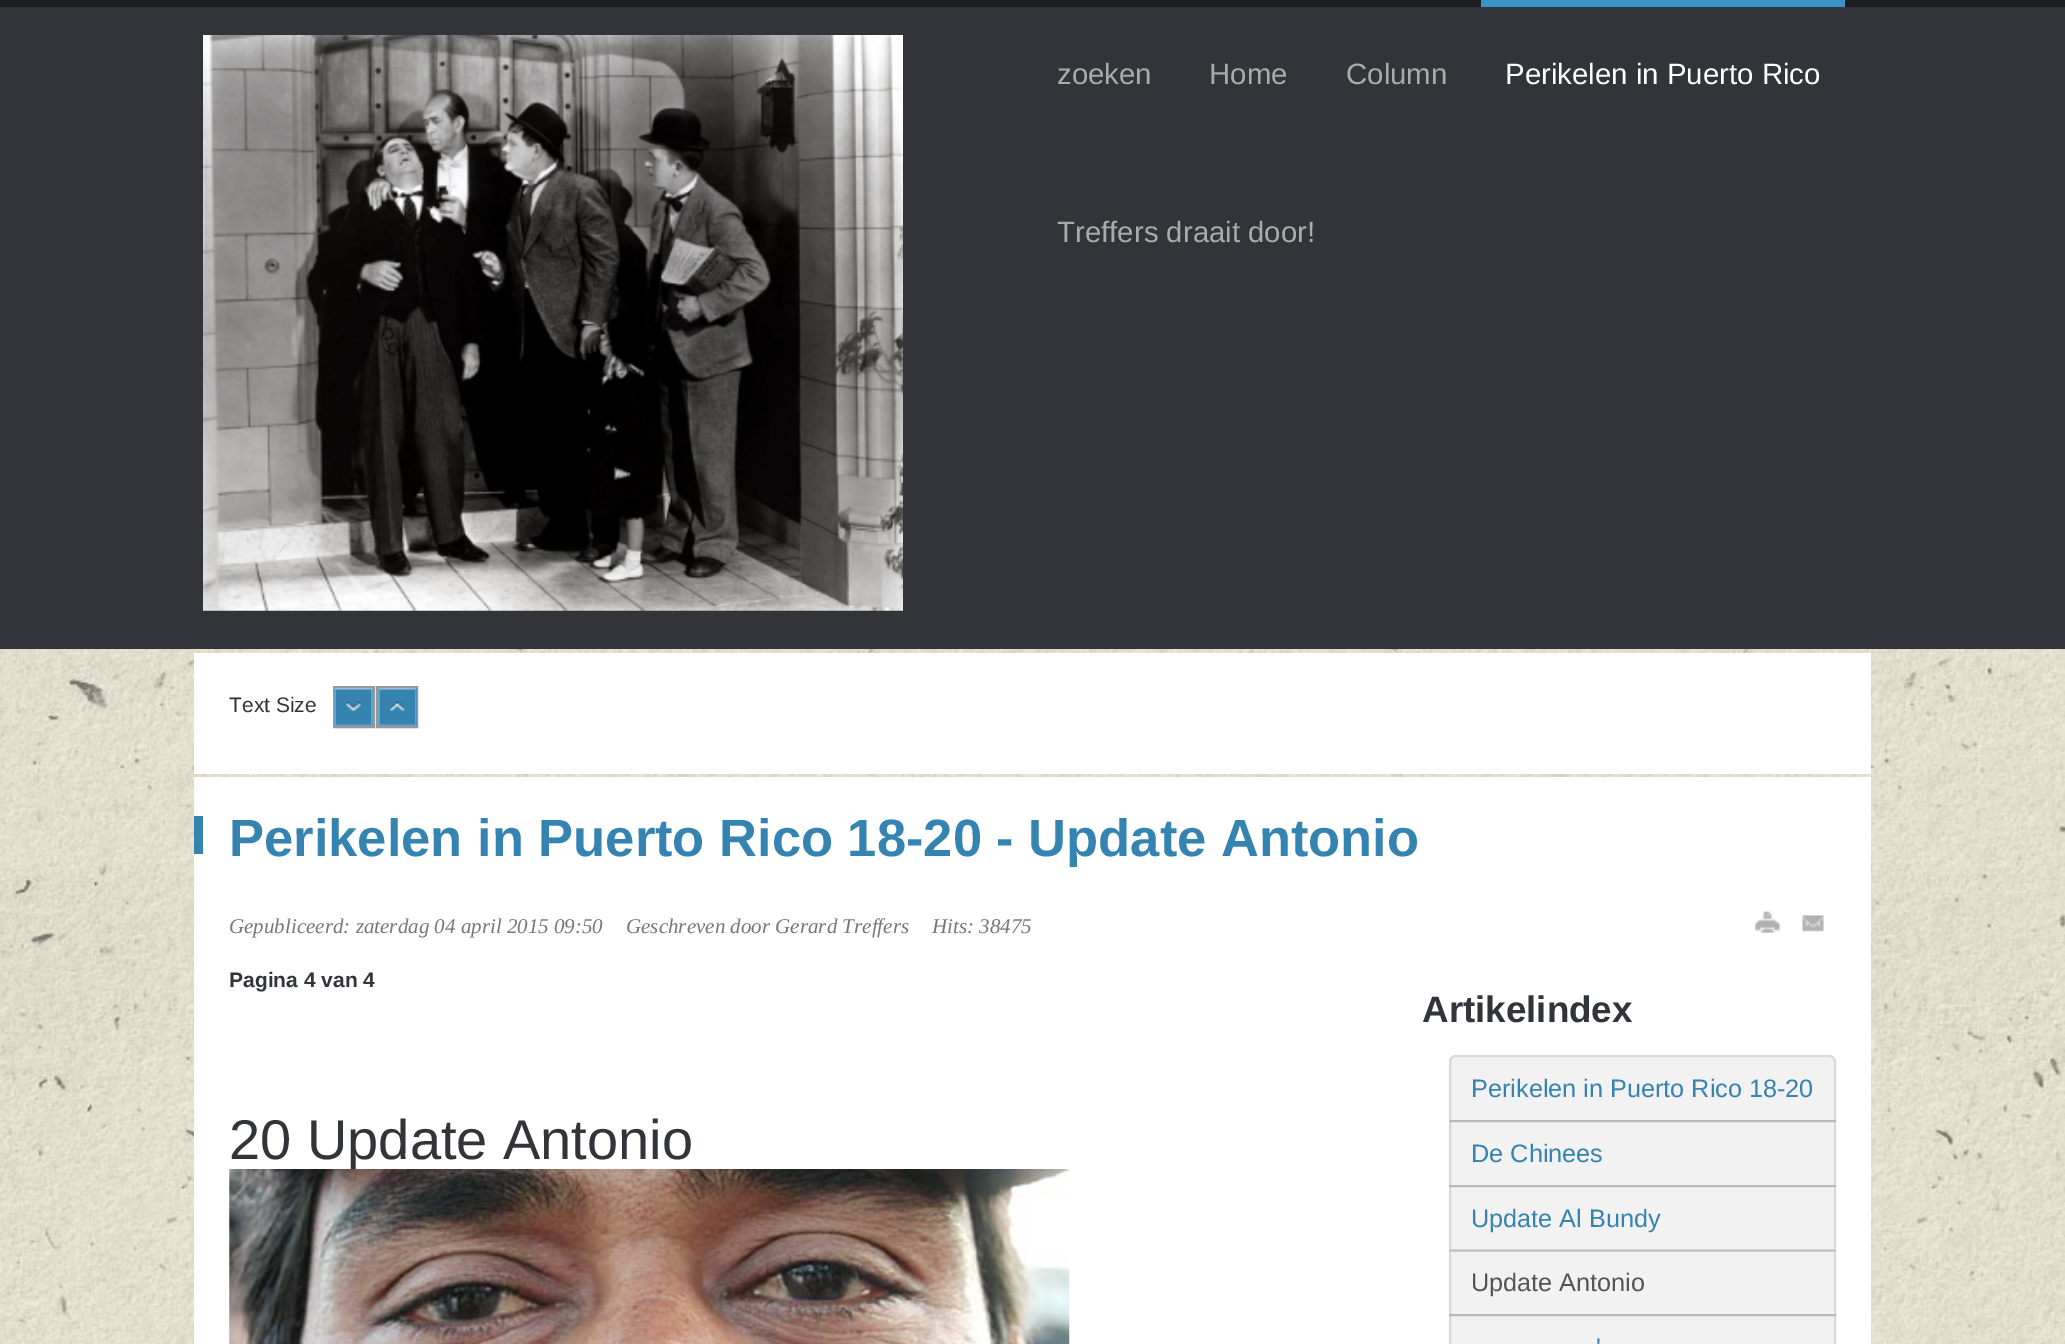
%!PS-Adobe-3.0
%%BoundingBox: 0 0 2065 1344
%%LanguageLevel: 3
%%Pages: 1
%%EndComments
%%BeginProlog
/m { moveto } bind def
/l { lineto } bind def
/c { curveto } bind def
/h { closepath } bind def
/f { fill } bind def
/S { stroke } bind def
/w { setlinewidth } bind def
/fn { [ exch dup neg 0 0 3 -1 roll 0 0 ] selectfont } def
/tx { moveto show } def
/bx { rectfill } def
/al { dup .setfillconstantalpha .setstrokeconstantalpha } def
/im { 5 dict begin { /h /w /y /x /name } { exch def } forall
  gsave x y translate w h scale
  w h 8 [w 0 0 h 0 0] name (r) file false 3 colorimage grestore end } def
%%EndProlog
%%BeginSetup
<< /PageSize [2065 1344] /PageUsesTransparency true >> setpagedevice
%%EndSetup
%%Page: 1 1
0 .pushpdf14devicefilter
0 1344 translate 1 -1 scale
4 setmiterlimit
1 setgray
0 0 2065 1344 bx
(image0.raw) 0 649 2065 695 im
0.2 0.204 0.224 setrgbcolor
0 7 2065 642 bx
0.106 0.11 0.114 setrgbcolor
0 0 2065 7 bx
(image1.raw) 203 35 700 576 im
/LiberationSans-Regular 29.4 fn
0.667 setgray
(zoeken) 1057 84 tx
(Home) 1209 84 tx
(Column) 1346 84 tx
0.231 0.573 0.769 setrgbcolor
1481 0 364 7 bx
1 setgray
(Perikelen in Puerto Rico) 1505 84 tx
0.667 setgray
(Treffers draait door!) 1057 242 tx
1 setgray
194 653 1677 121 bx
/LiberationSans-Regular 21 fn
0.192 0.204 0.224 setrgbcolor
(Text Size) 229 712 tx
0.6 setgray
2 w
334 687 40 40 rectstroke
0.208 0.514 0.69 setrgbcolor
334 688 39 38 bx
(image2.raw) 346 701 15 10 im
0.612 0.733 0.804 setrgbcolor
334 688 m 373 688 l 371 689.5 l 336 689.5 l h f
0.3 al
0.882 setgray
373 688 m 373 726 l 371 724.5 l 371 689.5 l h f
1 al
0.412 0.624 0.749 setrgbcolor
373 726 m 334 726 l 336 724.5 l 371 724.5 l h f
0.3 al
0.882 setgray
334 726 m 334 688 l 336 689.5 l 336 724.5 l h f
1 al
0.6 setgray
377 687 40 40 rectstroke
0.208 0.514 0.69 setrgbcolor
378 688 39 38 bx
(image3.raw) 390 701 15 10 im
0.612 0.733 0.804 setrgbcolor
378 688 m 416.5 688 l 415 689.5 l 380 689.5 l h f
0.3 al
0.882 setgray
416.5 688 m 416.5 726 l 415 724.5 l 415 689.5 l h f
416.5 726 m 378 726 l 380 724.5 l 415 724.5 l h f
378 726 m 378 688 l 380 689.5 l 380 724.5 l h f
1 al
1 setgray
194 777 1677 567 bx
0.208 0.514 0.69 setrgbcolor
194 816 9 38 bx
/LiberationSans-Bold 52.5 fn
(Perikelen in Puerto Rico 18-20 - Update Antonio) 229 856 tx
/LiberationSerif-Italic 21 fn
0.467 setgray
(Gepubliceerd: zaterdag 04 april 2015 09:50) 229 933 tx
(Geschreven door Gerard Treffers) 626 933 tx
(Hits: 38475) 932 933 tx
(image4.raw) 1755 911 25 22 im
(image5.raw) 1802 915 22 17 im
/LiberationSans-Bold 21 fn
0.192 0.204 0.224 setrgbcolor
(Pagina 4 van 4) 229 987 tx
/LiberationSans-Regular 56 fn
(20 Update Antonio) 229 1159 tx
(image6.raw) 229 1169 841 175 im
/LiberationSans-Bold 36.75 fn
(Artikelindex) 1422 1022 tx
0.949 setgray
1456 1055 m 1829 1055 l 1833 1055 1836 1058 1836 1062 c 1836 1122 l 1449 1122 l 1449 1062 l 1449 1058 1452 1055 1456 1055 c h f
0.1 al
0 setgray
1456 1056 m 1829 1056 l 1832.5 1056 1835 1058.5 1835 1062 c 1835 1121 l 1450 1121 l 1450 1062 l 1450 1058.5 1452.5 1056 1456 1056 c h S
/LiberationSans-Regular 25.25 fn
1 al
0.208 0.514 0.69 setrgbcolor
(Perikelen in Puerto Rico 18-20) 1471 1097 tx
0.05 al
0 setgray
1449 1120 387 67 bx
0.1 al
1450 1121 385 65 rectstroke
1 al
0.208 0.514 0.69 setrgbcolor
(De Chinees) 1471 1162 tx
0.05 al
0 setgray
1449 1185 387 66 bx
0.1 al
1450 1186 385 64 rectstroke
1 al
0.208 0.514 0.69 setrgbcolor
(Update Al Bundy) 1471 1227 tx
0.05 al
0 setgray
1449 1250 387 66 bx
0.1 al
1450 1251 385 64 rectstroke
1 al
0.333 setgray
(Update Antonio) 1471 1291 tx
0.05 al
0 setgray
1449 1314 387 30 bx
0.1 al
1450 1315 385 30 rectstroke
1 al
0.208 0.514 0.69 setrgbcolor
(') 1596 1356 tx
.poppdf14devicefilter showpage
%%EOF
